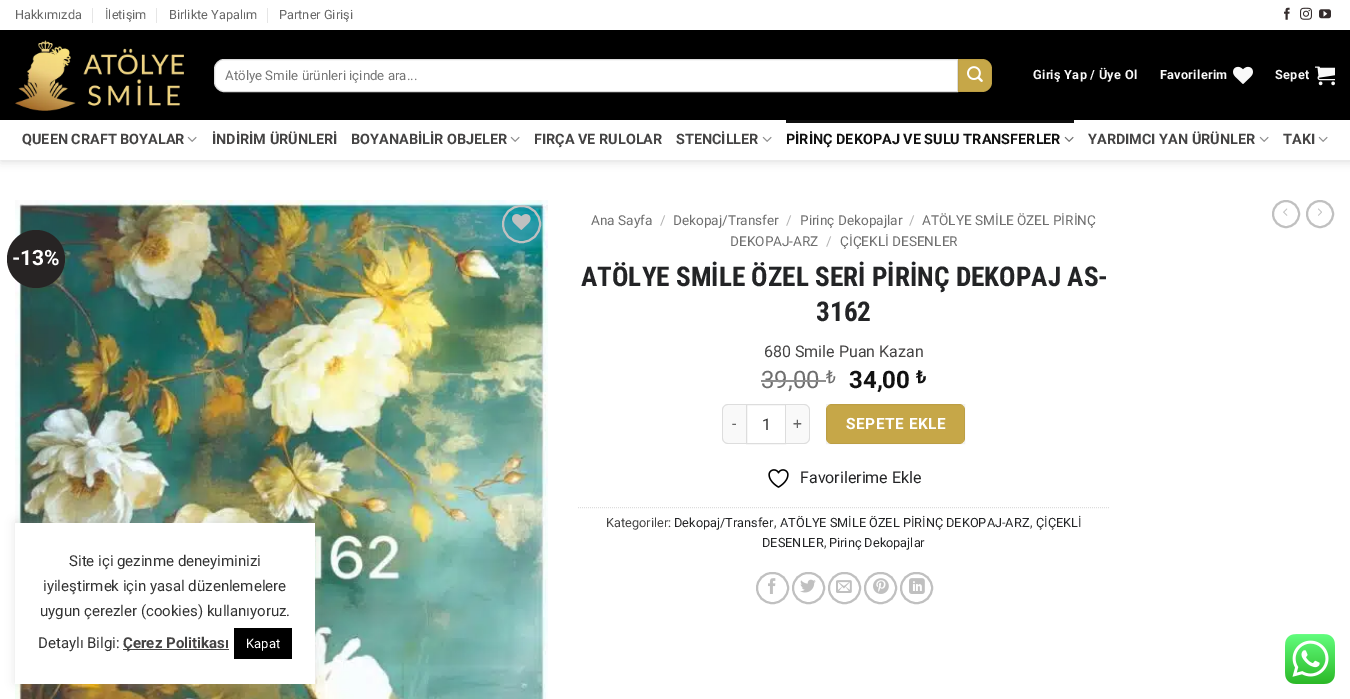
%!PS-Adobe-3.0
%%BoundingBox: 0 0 1350 699
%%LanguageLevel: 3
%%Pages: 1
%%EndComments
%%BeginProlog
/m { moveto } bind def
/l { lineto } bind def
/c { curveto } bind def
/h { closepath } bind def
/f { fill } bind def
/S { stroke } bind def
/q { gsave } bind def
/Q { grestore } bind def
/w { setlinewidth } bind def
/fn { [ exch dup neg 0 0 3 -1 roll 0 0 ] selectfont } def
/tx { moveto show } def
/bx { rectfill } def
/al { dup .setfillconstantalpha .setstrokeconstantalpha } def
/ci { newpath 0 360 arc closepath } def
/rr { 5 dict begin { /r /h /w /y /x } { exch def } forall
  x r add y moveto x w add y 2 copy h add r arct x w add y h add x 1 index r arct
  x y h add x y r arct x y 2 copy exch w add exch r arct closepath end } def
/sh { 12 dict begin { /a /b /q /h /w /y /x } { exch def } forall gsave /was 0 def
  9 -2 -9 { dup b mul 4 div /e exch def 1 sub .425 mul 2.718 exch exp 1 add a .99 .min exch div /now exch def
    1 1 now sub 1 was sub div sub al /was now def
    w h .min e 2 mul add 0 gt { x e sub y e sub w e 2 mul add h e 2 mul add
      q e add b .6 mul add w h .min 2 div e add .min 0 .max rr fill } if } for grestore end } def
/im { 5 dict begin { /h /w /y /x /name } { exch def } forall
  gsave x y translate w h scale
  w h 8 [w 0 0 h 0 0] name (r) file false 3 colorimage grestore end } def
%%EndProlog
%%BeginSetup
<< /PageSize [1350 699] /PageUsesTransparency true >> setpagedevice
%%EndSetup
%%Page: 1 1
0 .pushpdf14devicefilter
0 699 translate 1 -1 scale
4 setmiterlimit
1 setgray
0 0 1350 699 bx
0 setgray
1 1 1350 160 0 5 0.15 sh
1 setgray
0 0 1350 30 bx
/Roboto-Regular 12.75 fn
0.4 setgray
(Hakkımızda) 15 19 tx
0.902 setgray
92 8 1 15 bx
0.4 setgray
(İletişim) 105 19 tx
0.902 setgray
156 8 1 15 bx
0.4 setgray
(Birlikte Yapalım) 169 19 tx
0.902 setgray
267 8 1 15 bx
0.4 setgray
(Partner Girişi) 279 19 tx
(image0.raw) 1284 7 6 13 im
(image1.raw) 1300 7 12 13 im
(image2.raw) 1319 9 12 10 im
0 setgray
0 30 1350 90 bx
(image3.raw) 15 40 169 71 im
1 setgray
224 59.5 m 957.5 59.5 l 957.5 91.5 l 224 91.5 l 219 91.5 214.5 87 214.5 82 c 214.5 69 l 214.5 64 219 59.5 224 59.5 c h q f Q
0.867 setgray
S
/Roboto-Regular 13.25 fn
0.459 setgray
(Atölye Smile ürünleri içinde ara...) 225 80 tx
0.776 0.655 0.282 setrgbcolor
958 59 m 982 59 l 987.5 59 992 63.5 992 69 c 992 82 l 992 87.5 987.5 92 982 92 c 958 92 l h f
0.05 al
0 setgray
958.5 59.5 33 32 rectstroke
1 al
(image4.raw) 967 66 16 16 im
/Roboto-Bold 12.75 fn
0.976 setgray
1033 79 m 0.25 0 (Giriş Yap / Üye Ol) ashow
1160 79 m 0.25 0 (Favorilerim) ashow
(image5.raw) 1233 66 20 18 im
1275 79 m 0.25 0 (Sepet) ashow
(image6.raw) 1315 66 20 20 im
1 setgray
0 120 1350 40 bx
/Roboto-Bold 14.4 fn
0.271 0.267 0.267 setrgbcolor
(QUEEN CRAFT BOYALAR) 22 144 tx
(image7.raw) 187 136 10 6 im
(İNDİRİM ÜRÜNLERİ) 212 144 tx
(BOYANABİLİR OBJELER) 351 144 tx
(image7.raw) 510 136 10 6 im
(FIRÇA VE RULOLAR) 534 144 tx
(STENCİLLER) 676 144 tx
(image7.raw) 762 136 10 6 im
0.059 setgray
786 120 288 3 bx
0.067 setgray
(PİRİNÇ DEKOPAJ VE SULU TRANSFERLER) 786 144 tx
(image8.raw) 1064 136 10 6 im
0.271 0.267 0.267 setrgbcolor
(YARDIMCI YAN ÜRÜNLER) 1088 144 tx
(image7.raw) 1259 136 10 6 im
(TAKI) 1283 144 tx
(image7.raw) 1318 136 10 6 im
(image9.raw) 15 200 533 499 im
0.753 setgray
2 w
503 206 37 36 18 rr S
(image10.raw) 512 214 19 16 im
0.153 0.141 0.141 setrgbcolor
36 259 29 ci f
/Roboto-Bold 21 fn
1 setgray
(-13%) 12 265 tx
/Roboto-Regular 13.6 fn
0.431 setgray
(Ana Sayfa) 591 225 tx
0.698 setgray
(/) 660 225 tx
0.431 setgray
(Dekopaj/Transfer) 673 225 tx
0.698 setgray
(/) 786 225 tx
0.431 setgray
(Pirinç Dekopajlar) 800 225 tx
0.698 setgray
(/) 909 225 tx
0.431 setgray
(ATÖLYE SMİLE ÖZEL PİRİNÇ) 922 225 tx
(DEKOPAJ-ARZ) 730 246 tx
0.698 setgray
(/) 826 246 tx
0.431 setgray
(ÇİÇEKLİ DESENLER) 840 246 tx
/RobotoCondensed-Bold 27.25 fn
0.137 0.141 0.149 setrgbcolor
(ATÖLYE SMİLE ÖZEL SERİ PİRİNÇ DEKOPAJ AS-) 581 286 tx
(3162) 816 321 tx
/Roboto-Regular 16 fn
0.271 0.267 0.267 setrgbcolor
(680 Smile Puan Kazan) 764 357 tx
/Roboto-Regular 24 fn
0.431 setgray
(39,00) 761 388 tx
0.561 setgray
761 380 65 2 bx
/Roboto-Regular 18 fn
0.431 setgray
(₺) 826 383 tx
/Roboto-Bold 24 fn
0.067 setgray
(34,00) 849 388 tx
/Roboto-Bold 18 fn
(₺) 916 383 tx
0.976 setgray
728 404 m 746 404 l 746 444 l 728 444 l 724.5 444 722 441.5 722 438 c 722 410 l 722 406.5 724.5 404 728 404 c h f
0.867 setgray
728 404 m 746 404 l 746 444 l 728 444 l 725 444 722 441 722 438 c 722 410 l 722 407 725 404 728 404 c h 728 405 m 746 405 l 746 443 l 728 443 l 725 443 723 441 723 438 c 723 410 l 723 407 725 405 728 405 c h eofill
/Roboto-Regular 15.5 fn
0.4 setgray
732 429 m 0.5 0 (-) ashow
0.867 setgray
1 w
746.5 404.5 39 39 rectstroke
/Roboto-Regular 16 fn
0.2 setgray
(1) 762 430 tx
0.976 setgray
786 404 m 804 404 l 807.5 404 810 406.5 810 410 c 810 438 l 810 441.5 807.5 444 804 444 c 786 444 l h f
0.867 setgray
786 404 m 804 404 l 807 404 810 407 810 410 c 810 438 l 810 441 807 444 804 444 c 786 444 l h 786 405 m 804 405 l 807 405 809 407 809 410 c 809 438 l 809 441 807 443 804 443 c 786 443 l h eofill
/Roboto-Regular 15.5 fn
0.4 setgray
793 429 m 0.5 0 (+) ashow
0.776 0.655 0.282 setrgbcolor
826 404 139 40 6 rr f
0.05 al
0 setgray
826.5 404.5 138 39 rectstroke
/Roboto-Bold 15.5 fn
1 al
1 setgray
846 429 m 0.5 0 (SEPETE EKLE) ashow
(image11.raw) 768 469 21 19 im
/Roboto-Regular 16 fn
0.137 0.141 0.149 setrgbcolor
(Favorilerime Ekle) 800 483 tx
0.867 setgray
[1 1] 0 setdash
578 507.5 m 1110 507.5 l S
/Roboto-Regular 12.75 fn
0.271 0.267 0.267 setrgbcolor
(Kategoriler:) 606 527 tx
0.137 0.141 0.149 setrgbcolor
(Dekopaj/Transfer) 674 527 tx
0.271 0.267 0.267 setrgbcolor
(,) 774 527 tx
0.137 0.141 0.149 setrgbcolor
(ATÖLYE SMİLE ÖZEL PİRİNÇ DEKOPAJ-ARZ) 780 527 tx
0.271 0.267 0.267 setrgbcolor
(,) 1030 527 tx
0.137 0.141 0.149 setrgbcolor
(ÇİÇEKLİ) 1036 527 tx
(DESENLER) 762 547 tx
0.271 0.267 0.267 setrgbcolor
(,) 824 547 tx
0.137 0.141 0.149 setrgbcolor
(Pirinç Dekopajlar) 829 547 tx
0.753 setgray
2 w
[] 0 setdash
757 573 31 30 15 rr S
(image12.raw) 768 578 8 16 im
793 573 31 30 15 rr S
(image13.raw) 800 579 16 14 im
829 573 31 30 15 rr S
(image14.raw) 836 580 16 13 im
865 573 31 30 15 rr S
(image15.raw) 873 578 16 16 im
901 573 31 30 15 rr S
(image16.raw) 909 578 16 16 im
1286 214 13 ci S
(image17.raw) 1283 208 5 8 im
1320 214 13 ci S
(image18.raw) 1318 208 4 8 im
0.675 0.671 0.671 setrgbcolor
15 522 300 161 0 5 0.3 sh
1 setgray
15 523 300 161 bx
/Roboto-Regular 15 fn
0.2 setgray
(Site içi gezinme deneyiminizi) 69 566 tx
(iyileştirmek için yasal düzenlemelere) 43 591 tx
(uygun çerezler \(cookies\) kullanıyoruz.) 40 616 tx
(Detaylı Bilgi:) 38 648 tx
0.267 setgray
123 649 106 1 bx
/Roboto-Bold 15 fn
0.271 0.267 0.267 setrgbcolor
(Çerez Politikası) 123 648 tx
0 setgray
234 628 58 31 bx
/Roboto-Regular 13 fn
1 setgray
(Kapat) 246 648 tx
(image19.raw) 1285 634 50 50 im
.poppdf14devicefilter showpage
%%EOF
